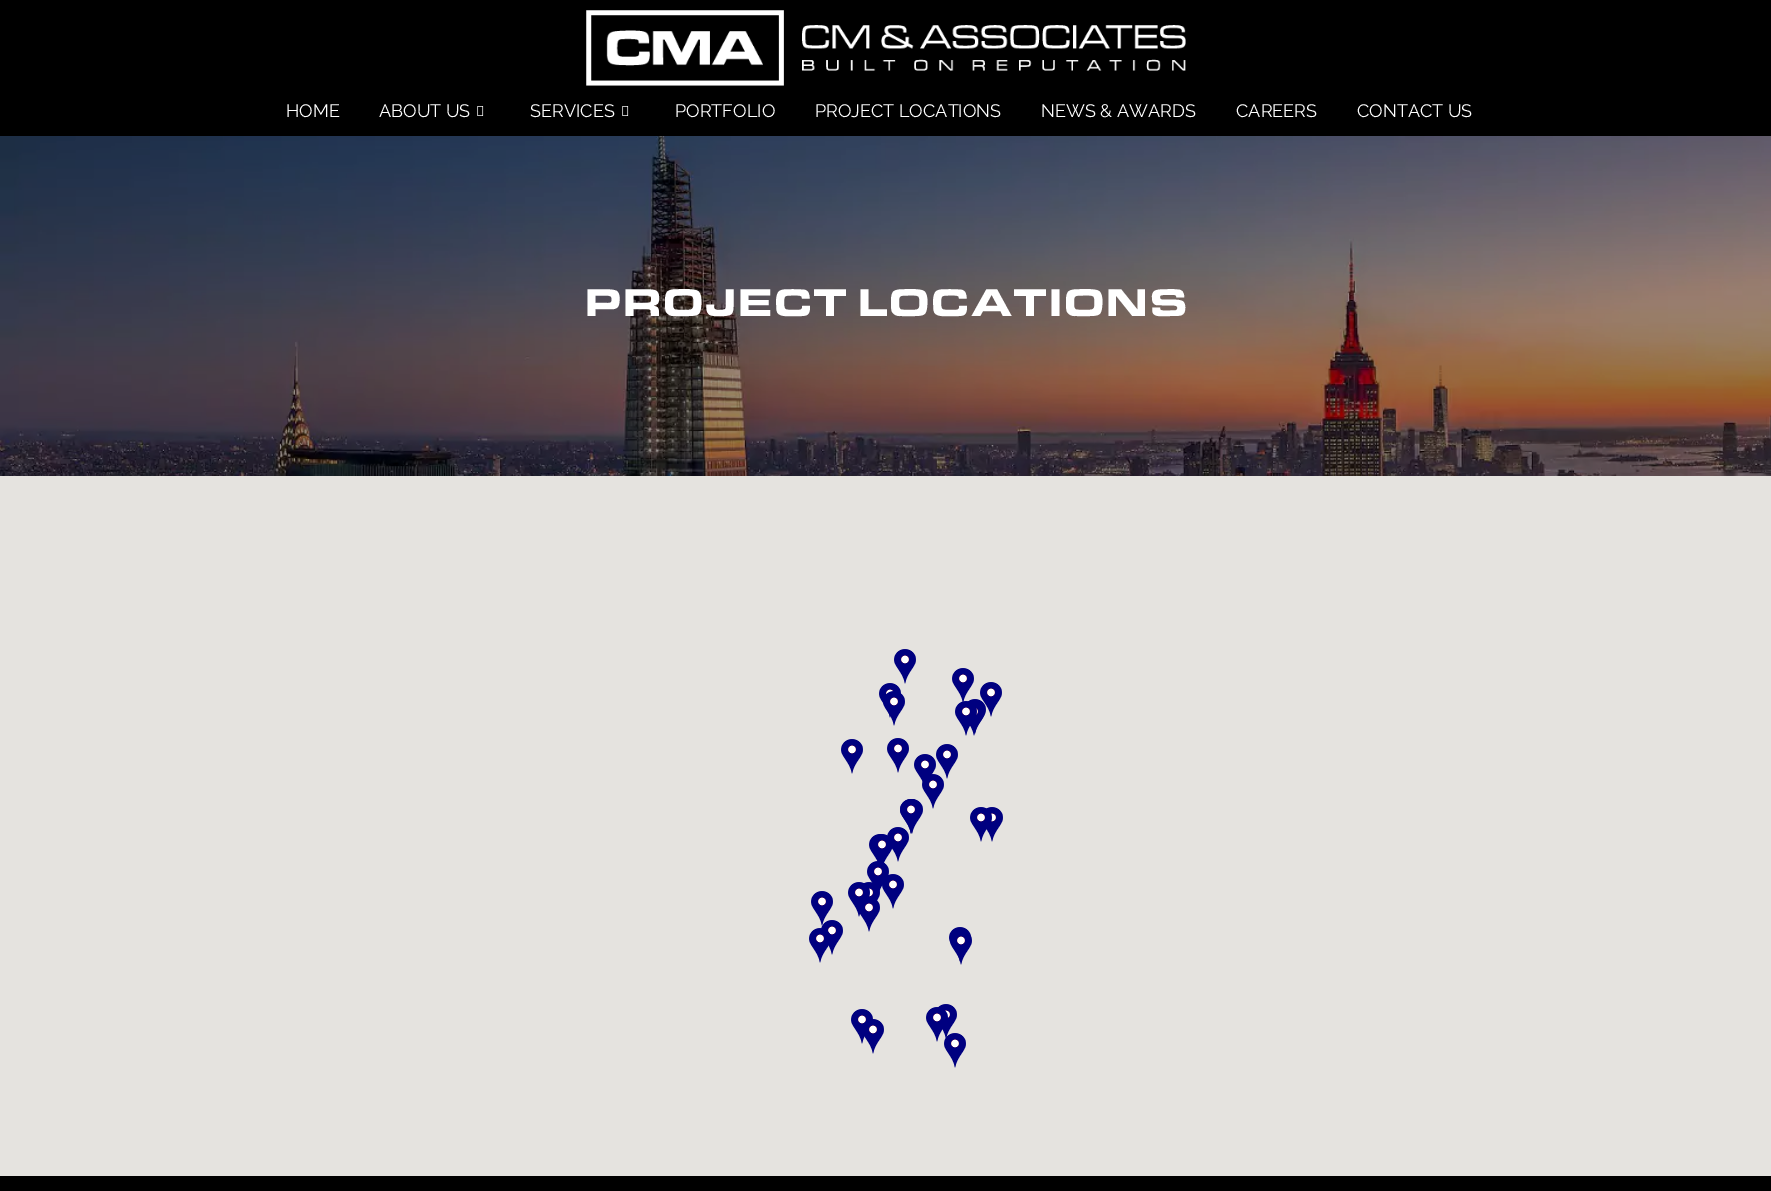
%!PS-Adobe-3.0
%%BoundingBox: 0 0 1771 1191
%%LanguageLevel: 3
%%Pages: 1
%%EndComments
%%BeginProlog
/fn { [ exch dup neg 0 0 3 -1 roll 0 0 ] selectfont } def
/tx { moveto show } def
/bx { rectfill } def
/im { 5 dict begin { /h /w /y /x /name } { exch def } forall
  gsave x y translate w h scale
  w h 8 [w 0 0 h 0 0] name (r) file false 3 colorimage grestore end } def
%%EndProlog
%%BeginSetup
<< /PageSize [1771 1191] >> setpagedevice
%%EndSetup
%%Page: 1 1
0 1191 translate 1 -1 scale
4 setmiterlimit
0 setgray
0 0 1771 1191 bx
(image0.raw) 586 10 600 76 im
/Raleway-Regular 18 fn
1 setgray
(HOME) 286 117 tx
(ABOUT US) 379 117 tx
(image1.raw) 477 106 7 10 im
(SERVICES) 530 117 tx
(image1.raw) 622 106 7 10 im
(PORTFOLIO) 675 117 tx
(PROJECT LOCATIONS) 815 117 tx
(NEWS & AWARDS) 1041 117 tx
(CAREERS) 1236 117 tx
(CONTACT US) 1357 117 tx
(image2.raw) 0 136 1771 340 im
/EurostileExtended-Black 40 fn
(PROJECT LOCATIONS) 584 316 tx
0.898 0.89 0.875 setrgbcolor
0 476 1771 700 bx
(image3.raw) 894 649 22 35 im
(image3.raw) 879 683 22 35 im
(image4.raw) 952 668 22 34 im
(image3.raw) 980 682 22 35 im
(image5.raw) 883 691 22 35 im
(image6.raw) 967 699 19 35 im
(image8.raw) 970 703 15 33 im
(image7.raw) 955 701 22 35 im
(image3.raw) 841 739 22 35 im
(image3.raw) 887 738 22 35 im
(image9.raw) 914 754 22 29 im
(image3.raw) 936 744 22 35 im
(image10.raw) 922 774 22 35 im
(image15.raw) 902 799 21 35 im
(image11.raw) 900 799 18 35 im
(image12.raw) 900 799 16 35 im
(image13.raw) 869 834 16 28 im
(image14.raw) 887 827 22 35 im
(image17.raw) 986 807 17 35 im
(image16.raw) 970 807 22 35 im
(image18.raw) 876 834 17 29 im
(image20.raw) 867 861 22 32 im
(image22.raw) 864 882 16 19 im
(image19.raw) 848 882 22 35 im
(image21.raw) 882 874 22 35 im
(image3.raw) 811 891 22 35 im
(image23.raw) 860 900 20 32 im
(image25.raw) 821 920 22 35 im
(image24.raw) 809 928 21 35 im
(image3.raw) 949 927 22 35 im
(image26.raw) 950 933 22 32 im
(image27.raw) 937 1004 20 35 im
(image3.raw) 851 1009 22 35 im
(image28.raw) 864 1019 20 35 im
(image29.raw) 926 1007 22 35 im
(image30.raw) 944 1033 22 35 im
showpage
%%EOF
